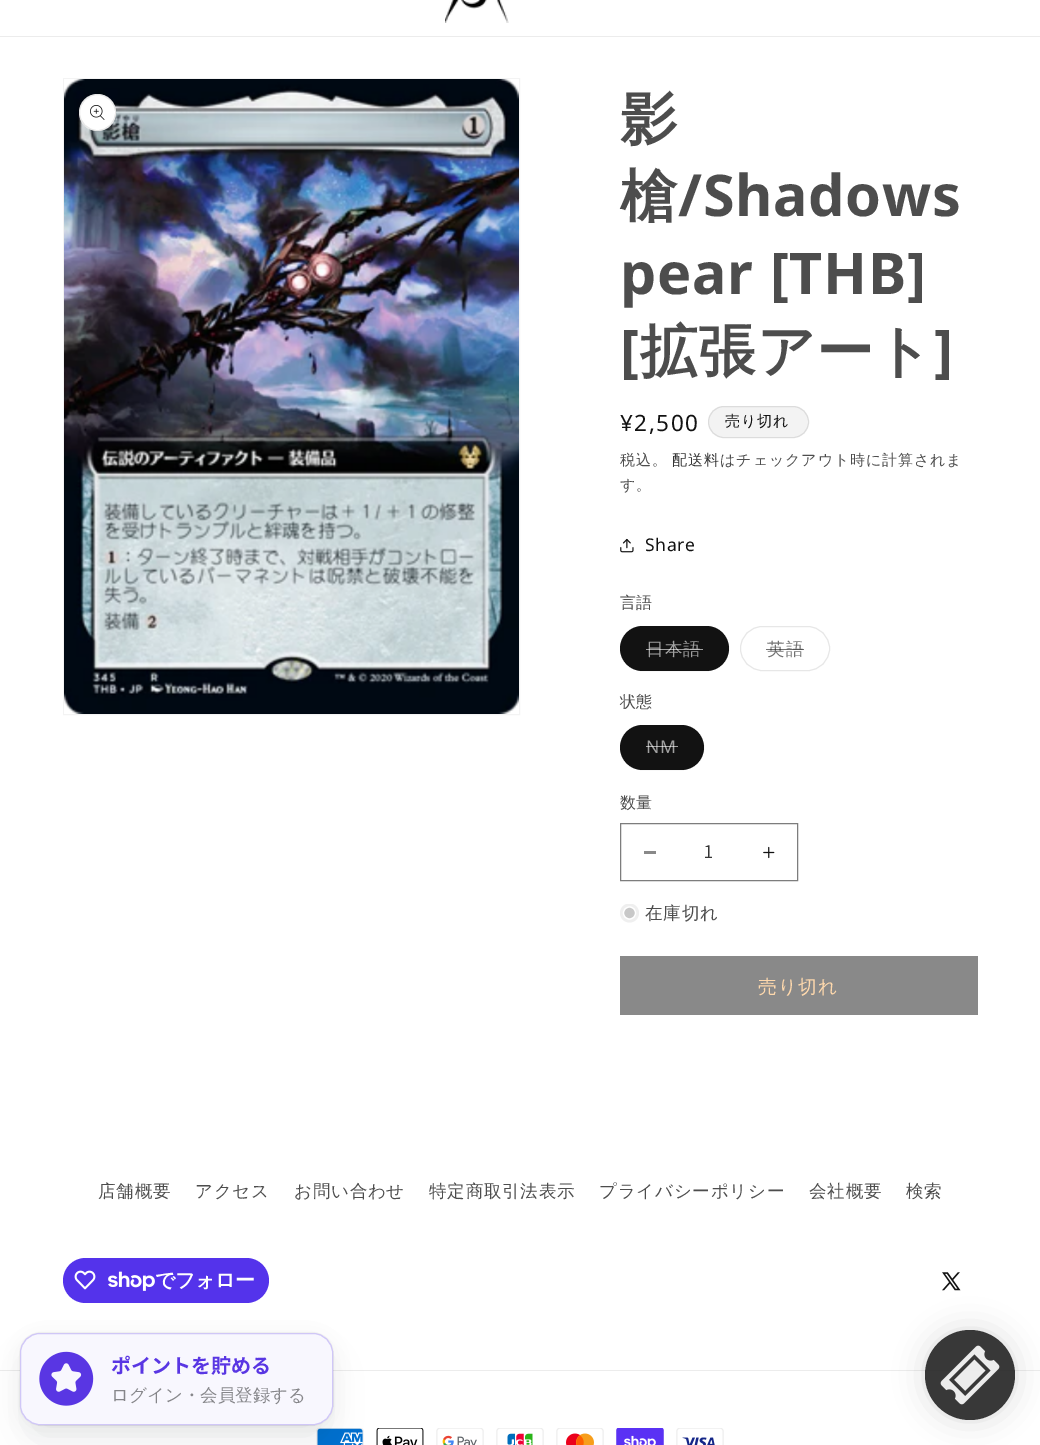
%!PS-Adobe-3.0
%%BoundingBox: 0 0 1040 1445
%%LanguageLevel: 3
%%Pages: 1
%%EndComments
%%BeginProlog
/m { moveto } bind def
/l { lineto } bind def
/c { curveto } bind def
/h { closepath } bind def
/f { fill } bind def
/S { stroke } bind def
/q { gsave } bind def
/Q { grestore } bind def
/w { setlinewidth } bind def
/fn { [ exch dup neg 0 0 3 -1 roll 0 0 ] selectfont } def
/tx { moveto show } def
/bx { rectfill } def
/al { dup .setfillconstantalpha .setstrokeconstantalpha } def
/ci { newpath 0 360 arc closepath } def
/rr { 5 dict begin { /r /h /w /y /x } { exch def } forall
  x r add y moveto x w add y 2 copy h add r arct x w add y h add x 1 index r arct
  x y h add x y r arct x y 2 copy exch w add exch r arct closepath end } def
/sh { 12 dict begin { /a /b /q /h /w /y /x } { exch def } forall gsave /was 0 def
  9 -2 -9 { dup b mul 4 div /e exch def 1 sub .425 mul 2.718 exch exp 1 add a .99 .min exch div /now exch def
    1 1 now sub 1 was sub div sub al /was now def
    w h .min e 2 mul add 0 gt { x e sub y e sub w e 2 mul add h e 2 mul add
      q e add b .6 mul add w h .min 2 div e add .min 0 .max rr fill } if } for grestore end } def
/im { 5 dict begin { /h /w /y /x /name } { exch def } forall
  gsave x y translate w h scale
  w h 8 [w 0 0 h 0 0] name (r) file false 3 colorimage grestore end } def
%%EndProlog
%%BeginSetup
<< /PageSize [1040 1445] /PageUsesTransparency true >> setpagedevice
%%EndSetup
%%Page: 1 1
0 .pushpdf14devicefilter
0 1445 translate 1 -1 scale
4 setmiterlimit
1 setgray
0 0 1040 1445 bx
0.925 setgray
0 36 1040 1 bx
(image0.raw) 445 0 64 23 im
0.953 setgray
63.5 78.5 456 636 rectstroke
(image1.raw) 64 79 455 635 im
1 setgray
97.5 112.5 18.5 ci f
0.1 al
0.071 setgray
97.5 112.5 18 ci S
1 al
(image2.raw) 90 105 15 15 im
/WenQuanYiZenHei-Bold 57.5 fn
0.302 setgray
620 139 m 0.75 0 (影) ashow
620 216 m 0.75 0 (槍) ashow
/NotoSans-Bold 57.5 fn
678 216 m 0.75 0 (/Shadows) ashow
620 294 m 0.75 0 (pear [THB]) ashow
620 371 m 0.75 0 ([) ashow
/WenQuanYiZenHei-Bold 57.5 fn
640 371 m 0.75 0 (拡張アート) ashow
/NotoSans-Bold 57.5 fn
934 371 m 0.75 0 (]) ashow
/NotoSans-Regular 22.5 fn
0.071 setgray
620 431 m 1.5 0 (¥2,500) ashow
0.953 setgray
708 406 101 32 16 rr f
0.1 al
0.071 setgray
708.5 406.5 100 31 15.5 rr S
/WenQuanYiZenHei-Medium 15 fn
1 al
725 426 m 1 0 (売り切れ) ashow
0.302 setgray
620 465 m 0.9 0 (税込。) ashow
0.212 setgray
672 465 m 0.9 0 (配送料) ashow
0.302 setgray
720 465 m 0.9 0 (はチェックアウト時に計算されま) ashow
620 490 m 0.9 0 (す。) ashow
(image3.raw) 620 538 14 15 im
/NotoSans-Regular 17.5 fn
0.071 setgray
645 551 m 0.75 0 (Share) ashow
/WenQuanYiZenHei-Medium 16 fn
0.302 setgray
(言語) 620 608 tx
0.071 setgray
620 626 109 45 22.5 rr f
0.1 al
620.5 626.5 108 44 22 rr S
/WenQuanYiZenHei-Medium 17.5 fn
1 al
0.627 setgray
646 655 m 1 0 (日本語) ashow
0.6 al
1 setgray
646 649 57 1 bx
1 al
0.906 setgray
740.5 626.5 89 44 22 rr S
0.443 setgray
767 655 m 1 0 (英語) ashow
0.6 al
0.071 setgray
766 649 38 1 bx
/WenQuanYiZenHei-Medium 16 fn
1 al
0.302 setgray
(状態) 620 707 tx
0.071 setgray
620 725 84 45 22.5 rr f
0.1 al
620.5 725.5 83 44 22 rr S
/NotoSans-Regular 17.5 fn
1 al
0.627 setgray
646 753 m 1 0 (NM) ashow
0.6 al
1 setgray
646 746 32 1 bx
/WenQuanYiZenHei-Medium 16 fn
1 al
0.302 setgray
(数量) 620 808 tx
0.537 setgray
644 851 12 3 bx
(image4.raw) 763 846 12 13 im
0.49 setgray
620.5 823.5 177 57 rectstroke
/Assistant-Regular 20 fn
0.212 setgray
(1) 704 858 tx
q
620 904 19 19 rectclip
0.937 setgray
629.5 913 9.5 ci f
Q
0.784 setgray
629.5 913 6 ci q f Q
1 setgray
1.2 w
S
/WenQuanYiZenHei-Medium 17.5 fn
0.302 setgray
645 919 m 0.75 0 (在庫切れ) ashow
0.537 setgray
620 956 358 59 bx
/WenQuanYiZenHei-Medium 18.75 fn
0.996 0.847 0.675 setrgbcolor
758 993 m 1 0 (売り切れ) ashow
/WenQuanYiZenHei-Medium 17.5 fn
0.302 setgray
98 1197 m 0.75 0 (店舗概要) ashow
195 1197 m 0.75 0 (アクセス) ashow
294 1197 m 0.75 0 (お問い合わせ) ashow
429 1197 m 0.75 0 (特定商取引法表示) ashow
599 1197 m 0.75 0 (プライバシーポリシー) ashow
809 1197 m 0.75 0 (会社概要) ashow
906 1197 m 0.75 0 (検索) ashow
0.329 0.2 0.922 setrgbcolor
63 1258 206 45 22.5 rr f
(image5.raw) 74 1270 22 20 im
(image6.raw) 108 1271 47 20 im
/WenQuanYiZenHei-Bold 20 fn
1 setgray
155 1287 m -0.5 0 (でフォロー) ashow
(image7.raw) 942 1272 19 19 im
0.925 setgray
0 1370 1040 1 bx
(image8.raw) 316 1428 48 17 im
(image9.raw) 376 1428 48 17 im
(image10.raw) 436 1428 48 17 im
(image11.raw) 496 1428 48 17 im
(image12.raw) 556 1428 48 17 im
(image13.raw) 616 1428 48 17 im
(image14.raw) 676 1428 48 17 im
0 setgray
20 1338 313 92 20 10 0.05 sh
0.067 0.094 0.149 setrgbcolor
33 1365 287 68 8 20 0.1 sh
0 setgray
20 1333 313 92 20 0.5 0.15 sh
0.973 0.969 0.996 setrgbcolor
20 1333 313 92 20 rr f
0.25 al
0.349 0.212 0.89 setrgbcolor
1 w
20.5 1333.5 312 91 19.5 rr S
1 al
(image15.raw) 39 1351 55 55 im
/NotoSansJP-Bold 20 fn
(ポイントを貯める) 111 1373 tx
/WenQuanYiZenHei-Medium 17.5 fn
0.525 0.525 0.541 setrgbcolor
(ログイン・会員登録する) 111 1401 tx
q
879 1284 m 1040 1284 l 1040 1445 l 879 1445 l h 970 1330 m 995 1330 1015 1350 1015 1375 c 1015 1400 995 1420 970 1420 c 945 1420 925 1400 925 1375 c 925 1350 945 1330 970 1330 c h eoclip newpath
0.2 setgray
925 1330 90 90 45 15 0.18 sh
Q
0.9 al
0.133 setgray
970 1375 45 ci f
1 al
(image16.raw) 940 1345 60 60 im
.poppdf14devicefilter showpage
%%EOF
